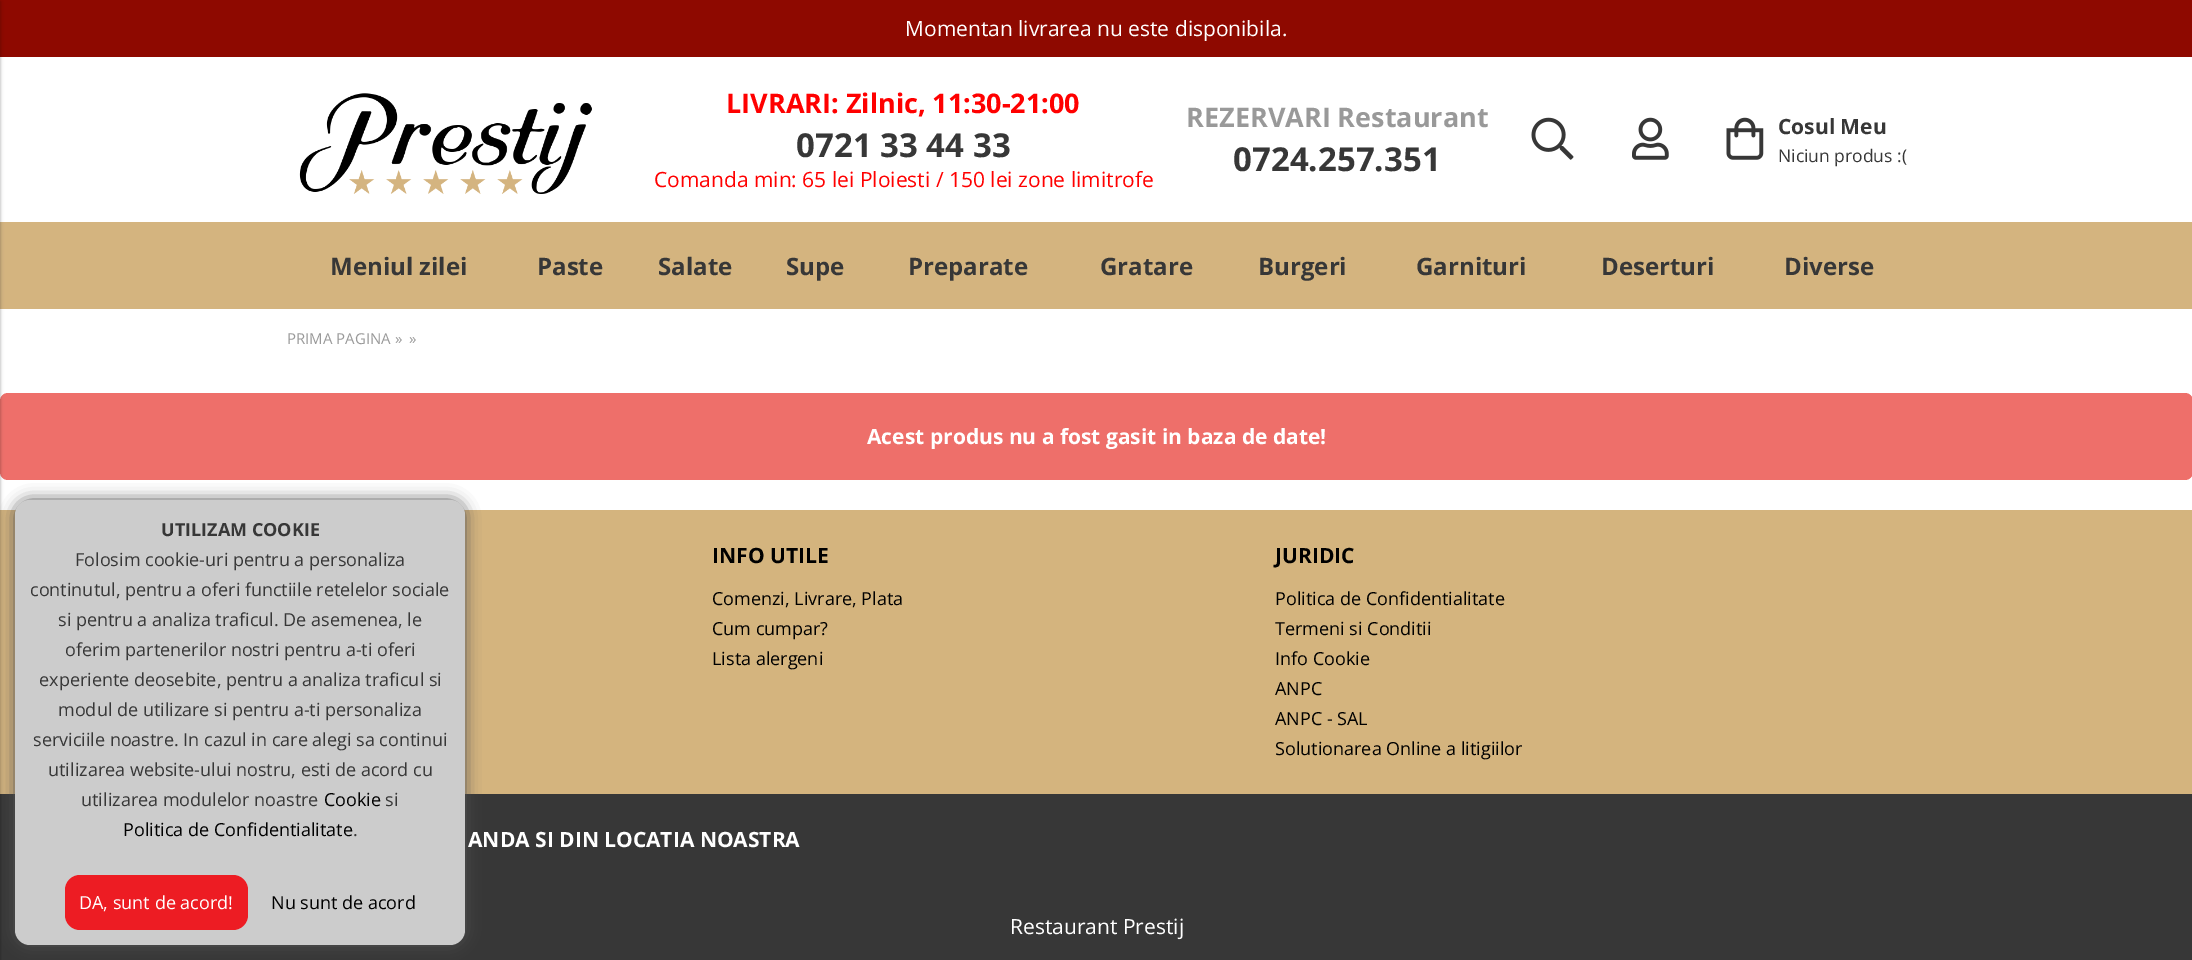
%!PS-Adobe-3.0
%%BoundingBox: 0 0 2192 960
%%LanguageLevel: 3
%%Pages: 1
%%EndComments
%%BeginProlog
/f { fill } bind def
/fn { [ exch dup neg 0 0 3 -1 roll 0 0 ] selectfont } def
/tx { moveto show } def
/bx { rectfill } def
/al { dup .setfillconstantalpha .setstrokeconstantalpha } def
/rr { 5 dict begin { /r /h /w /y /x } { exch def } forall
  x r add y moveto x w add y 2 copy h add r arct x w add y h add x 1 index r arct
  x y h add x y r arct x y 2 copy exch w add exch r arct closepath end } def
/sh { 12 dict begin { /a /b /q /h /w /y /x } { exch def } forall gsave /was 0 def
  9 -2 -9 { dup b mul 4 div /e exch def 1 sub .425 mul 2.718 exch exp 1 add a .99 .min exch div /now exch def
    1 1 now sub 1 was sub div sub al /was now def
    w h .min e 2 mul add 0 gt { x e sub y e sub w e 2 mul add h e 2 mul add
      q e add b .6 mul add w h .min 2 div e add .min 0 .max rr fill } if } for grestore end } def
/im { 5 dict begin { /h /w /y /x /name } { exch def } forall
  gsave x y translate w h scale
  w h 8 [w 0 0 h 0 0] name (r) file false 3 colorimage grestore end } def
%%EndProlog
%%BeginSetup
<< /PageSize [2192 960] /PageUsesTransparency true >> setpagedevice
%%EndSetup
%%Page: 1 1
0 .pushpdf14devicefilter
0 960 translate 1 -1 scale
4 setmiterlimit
1 setgray
0 0 2192 960 bx
0.557 0.035 0 setrgbcolor
0 0 2192 57 bx
0.831 0.706 0.498 setrgbcolor
0 222 2192 87 bx
0.933 0.435 0.416 setrgbcolor
0 393 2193 87 8 rr f
0.831 0.706 0.494 setrgbcolor
0 510 2192 284 bx
0.216 setgray
0 794 2192 166 bx
0 setgray
-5 2 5 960 0 1.5 0.24 sh
-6 2 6 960 0 2 0.12 sh
/OpenSans-Regular 21 fn
1 setgray
(Momentan livrarea nu este disponibila.) 905 36 tx
(image0.raw) 299 93 293 101 im
/OpenSans-Bold 27 fn
1 0 0 setrgbcolor
(LIVRARI: Zilnic, 11:30-21:00) 726 113 tx
/OpenSans-Bold 33 fn
0.216 setgray
(0721 33 44 33) 796 157 tx
/OpenSans-Regular 21 fn
1 0 0 setrgbcolor
(Comanda min: 65 lei Ploiesti / 150 lei zone limitrofe) 654 187 tx
/OpenSans-Bold 27 fn
0.6 setgray
(REZERVARI Restaurant) 1186 127 tx
/OpenSans-Bold 33 fn
0.216 setgray
(0724.257.351) 1233 171 tx
(image1.raw) 1531 117 43 43 im
(image2.raw) 1632 117 37 43 im
(image3.raw) 1726 117 38 43 im
/OpenSans-Bold 21 fn
(Cosul Meu) 1778 134 tx
/OpenSans-Regular 17.5 fn
(Niciun produs :\() 1778 162 tx
/OpenSans-Bold 24 fn
(Meniul zilei) 330 275 tx
(Paste) 537 275 tx
(Salate) 658 275 tx
(Supe) 786 275 tx
(Preparate) 908 275 tx
(Gratare) 1100 275 tx
(Burgeri) 1258 275 tx
(Garnituri) 1416 275 tx
(Deserturi) 1601 275 tx
(Diverse) 1784 275 tx
0.333 setgray
15 500 450 445 15 7.5 1 sh
0.8 setgray
15 500 450 445 15 rr f
/OpenSans-Bold 18 fn
0.216 setgray
(UTILIZAM COOKIE) 161 536 tx
/OpenSans-Regular 18 fn
(Folosim cookie-uri pentru a personaliza) 75 566 tx
(continutul, pentru a oferi functiile retelelor sociale) 30 596 tx
(si pentru a analiza traficul. De asemenea, le) 58 626 tx
(oferim partenerilor nostri pentru a-ti oferi) 65 656 tx
(experiente deosebite, pentru a analiza traficul si) 39 686 tx
(modul de utilizare si pentru a-ti personaliza) 58 716 tx
(serviciile noastre. In cazul in care alegi sa continui) 33 746 tx
(utilizarea website-ului nostru, esti de acord cu) 48 776 tx
(utilizarea modulelor noastre) 81 806 tx
0 setgray
(Cookie) 324 806 tx
0.216 setgray
(si) 385 806 tx
0 setgray
(Politica de Confidentialitate) 123 836 tx
0.216 setgray
(.) 353 836 tx
0.929 0.11 0.137 setrgbcolor
65 875 183 55 15 rr f
1 setgray
(DA, sunt de acord!) 79 909 tx
0 setgray
(Nu sunt de acord) 271 909 tx
/OpenSans-Regular 15 fn
0.6 setgray
(PRIMA PAGINA ») 287 344 tx
(») 409 344 tx
/OpenSans-Bold 21 fn
1 setgray
(Acest produs nu a fost gasit in baza de date!) 867 444 tx
0 setgray
(INFO UTILE) 712 563 tx
/OpenSans-Regular 18 fn
(Comenzi, Livrare, Plata) 712 605 tx
(Cum cumpar?) 712 635 tx
(Lista alergeni) 712 665 tx
/OpenSans-Bold 21 fn
(JURIDIC) 1275 563 tx
/OpenSans-Regular 18 fn
(Politica de Confidentialitate) 1275 605 tx
(Termeni si Conditii) 1275 635 tx
(Info Cookie) 1275 665 tx
(ANPC) 1275 695 tx
(ANPC - SAL) 1275 725 tx
(Solutionarea Online a litigiilor) 1275 755 tx
/OpenSans-Bold 21 fn
1 setgray
(ANDA SI DIN LOCATIA NOASTRA) 468 847 tx
/OpenSans-Regular 21 fn
(Restaurant Prestij) 1010 934 tx
.poppdf14devicefilter showpage
%%EOF
